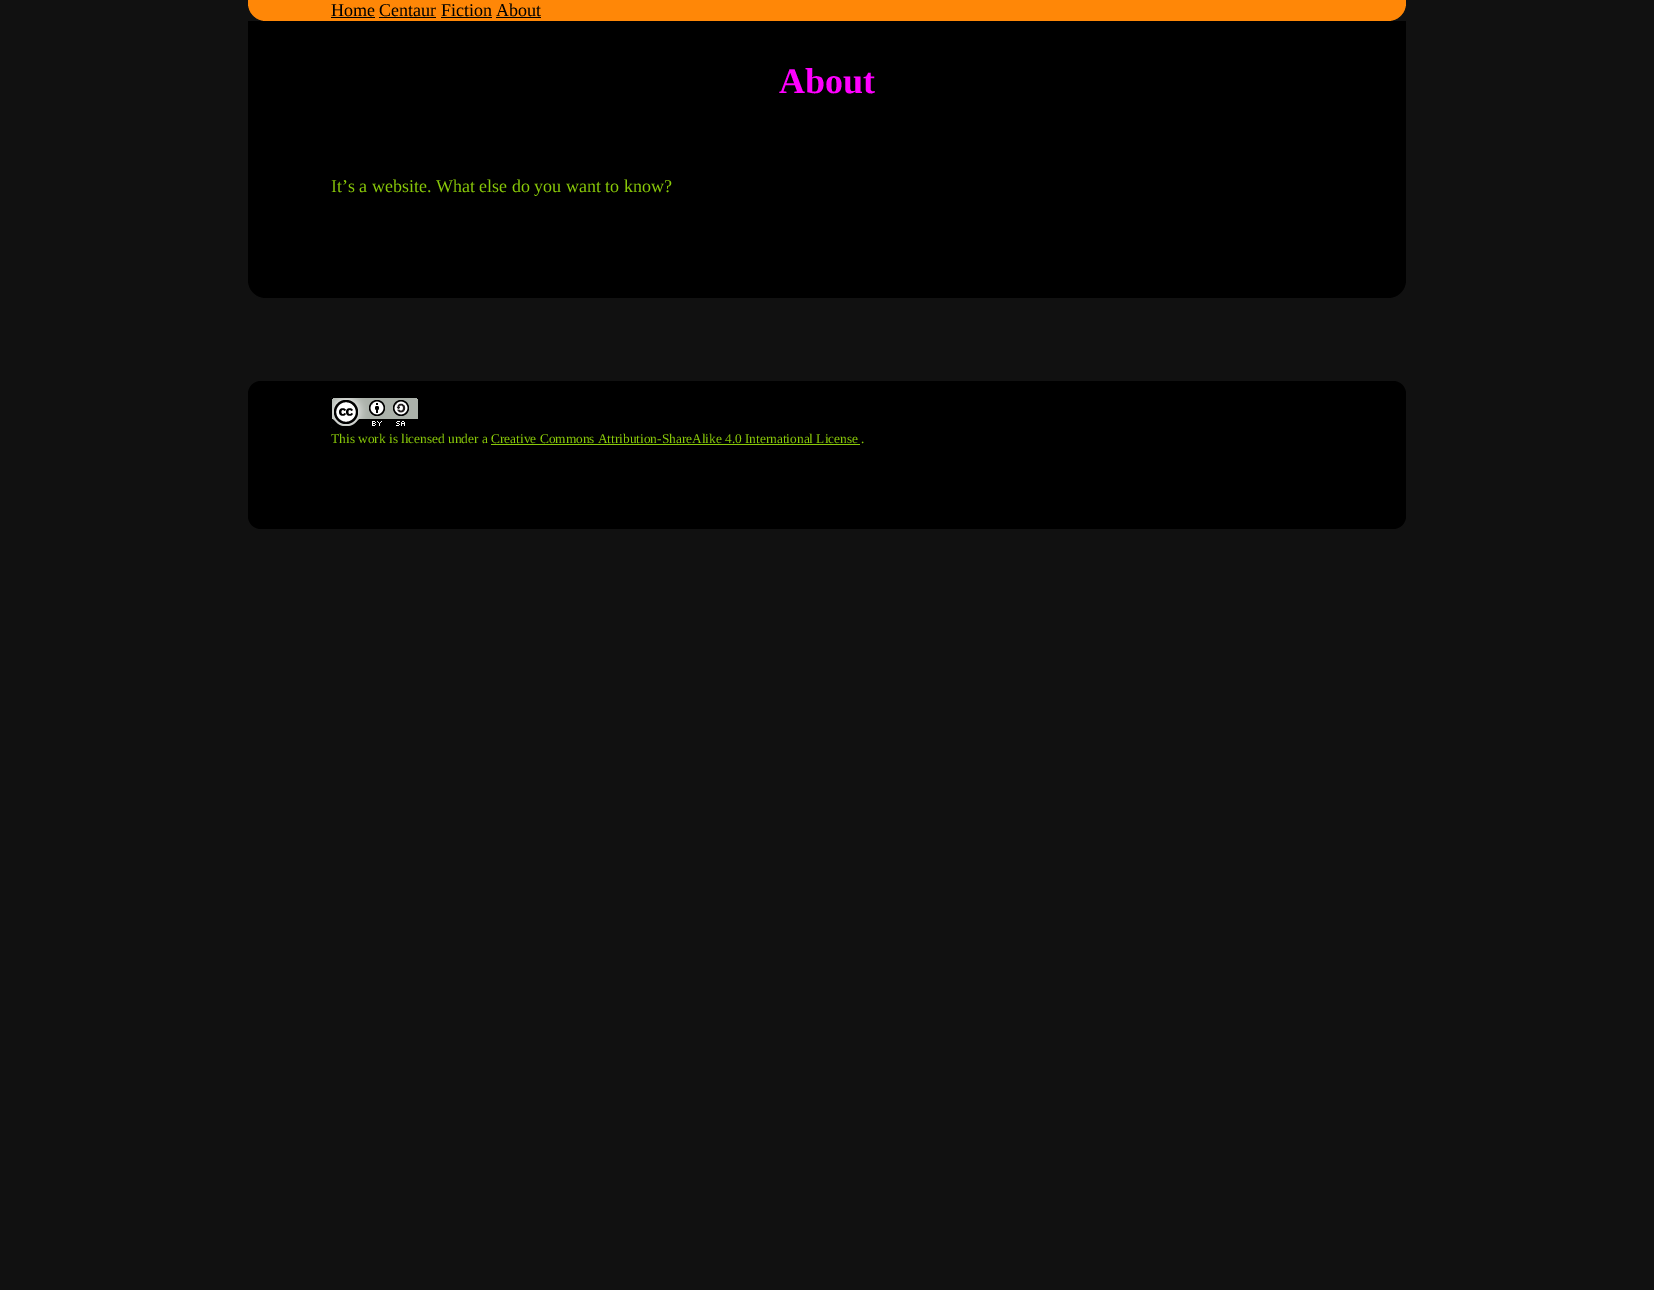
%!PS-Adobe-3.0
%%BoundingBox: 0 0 1654 1290
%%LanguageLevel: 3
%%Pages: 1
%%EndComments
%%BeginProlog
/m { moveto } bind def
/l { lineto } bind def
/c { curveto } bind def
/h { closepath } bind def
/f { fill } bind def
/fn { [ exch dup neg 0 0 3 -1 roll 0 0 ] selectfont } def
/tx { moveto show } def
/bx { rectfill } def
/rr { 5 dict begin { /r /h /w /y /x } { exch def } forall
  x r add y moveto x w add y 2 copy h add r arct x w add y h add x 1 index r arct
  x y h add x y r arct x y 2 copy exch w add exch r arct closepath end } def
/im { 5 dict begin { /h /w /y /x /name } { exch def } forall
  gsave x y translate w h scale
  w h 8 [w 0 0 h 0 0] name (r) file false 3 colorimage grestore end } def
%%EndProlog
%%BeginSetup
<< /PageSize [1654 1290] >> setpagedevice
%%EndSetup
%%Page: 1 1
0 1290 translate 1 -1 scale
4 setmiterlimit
0.067 setgray
0 0 1654 1290 bx
1 0.529 0.027 setrgbcolor
248 0 m 1406 0 l 1406 3 l 1406 13 1398 21 1388 21 c 266 21 l 256 21 248 13 248 3 c h f
/LiberationSerif-Regular 18 fn
0 setgray
(Home Centaur Fiction About) 331 16 tx
331 17 44 1 bx
379 17 57 1 bx
441 17 51 1 bx
496 17 45 1 bx
248 21 m 1406 21 l 1406 280 l 1406 290 1398 298 1388 298 c 266 298 l 256 298 248 290 248 280 c h f
/LiberationSerif-Bold 36 fn
1 0 1 setrgbcolor
(About) 779 93 tx
/LiberationSerif-Regular 18 fn
0.537 0.788 0.035 setrgbcolor
(It’s a website. What else do you want to know?) 331 192 tx
0 setgray
248 381 1158 148 13 rr f
(image0.raw) 331 397 87 31 im
/LiberationSerif-Regular 13.35 fn
0.537 0.788 0.035 setrgbcolor
(This work is licensed under a Creative Commons Attribution-ShareAlike 4.0 International License .) 331 443 tx
491 444 369 1 bx
showpage
%%EOF
